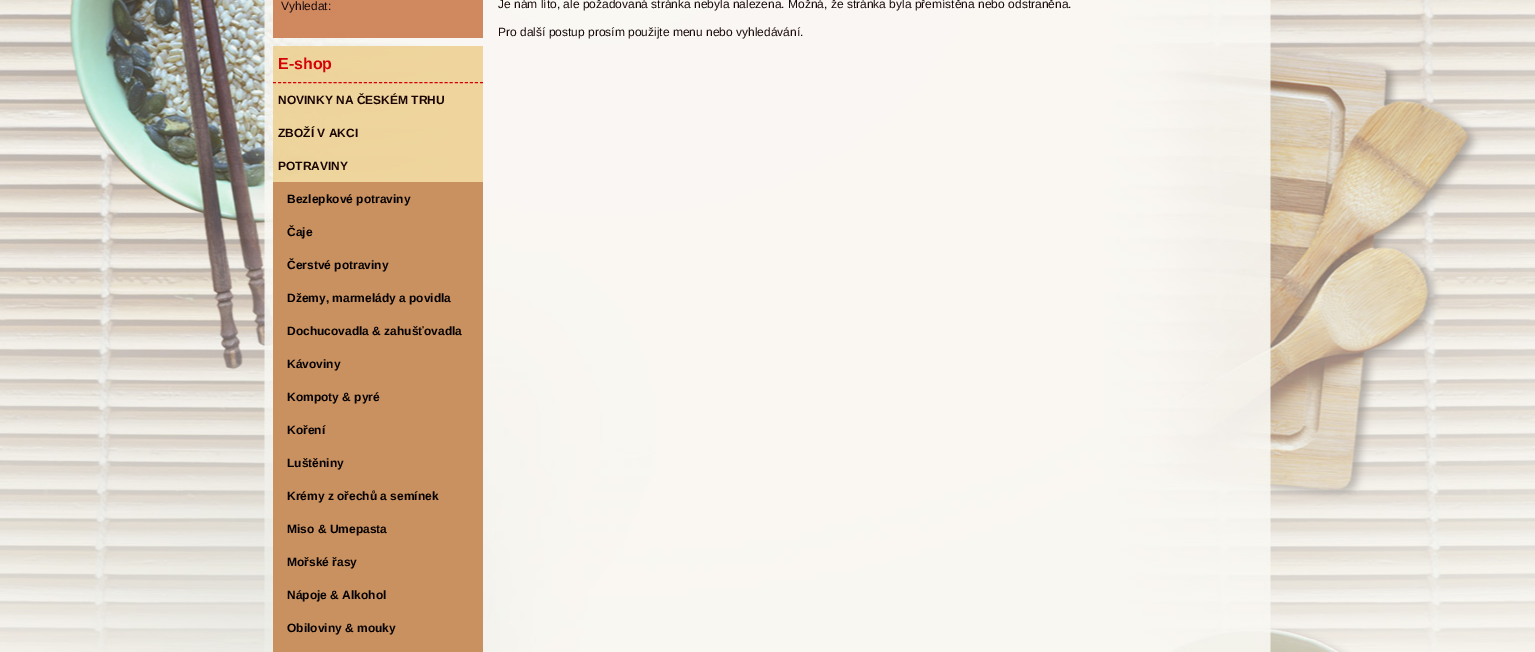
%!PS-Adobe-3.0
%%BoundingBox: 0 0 1535 652
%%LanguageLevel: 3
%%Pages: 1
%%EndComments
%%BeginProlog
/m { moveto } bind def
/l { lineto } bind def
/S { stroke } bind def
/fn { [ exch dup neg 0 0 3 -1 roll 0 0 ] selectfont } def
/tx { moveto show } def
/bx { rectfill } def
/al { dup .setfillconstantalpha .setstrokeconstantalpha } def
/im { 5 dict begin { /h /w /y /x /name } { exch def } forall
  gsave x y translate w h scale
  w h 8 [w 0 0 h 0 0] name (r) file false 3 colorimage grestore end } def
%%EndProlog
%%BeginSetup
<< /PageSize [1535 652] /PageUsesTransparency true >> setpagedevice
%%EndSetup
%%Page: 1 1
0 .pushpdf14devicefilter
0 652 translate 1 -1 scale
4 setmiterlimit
1 setgray
0 0 1535 652 bx
(image0.raw) 0 0 1535 652 im
(image1.raw) 268 19 1000 435 im
0.816 0.533 0.373 setrgbcolor
273 0 210 38 bx
/LiberationSans-Regular 12 fn
0.094 0.039 0.039 setrgbcolor
(Vyhledat:) 281 10 tx
0.79 al
0.925 0.8 0.525 setrgbcolor
273 46 210 136 bx
1 al
0.831 0.008 0.031 setrgbcolor
[3 2.05] 0 setdash
273 82.5 m 483 82.5 l S
/LiberationSans-Bold 16 fn
0.831 0.012 0.031 setrgbcolor
(E-shop) 278 69 tx
/LiberationSans-Bold 12 fn
0.098 0.016 0.004 setrgbcolor
(NOVINKY NA ČESKÉM TRHU) 278 104 tx
(ZBOŽÍ V AKCI) 278 137 tx
(POTRAVINY) 278 170 tx
0.784 0.569 0.373 setrgbcolor
273 182 210 470 bx
0.02 0 0.004 setrgbcolor
(Bezlepkové potraviny) 287 203 tx
(Čaje) 287 236 tx
(Čerstvé potraviny) 287 269 tx
(Džemy, marmelády a povidla) 287 302 tx
(Dochucovadla & zahušťovadla) 287 335 tx
(Kávoviny) 287 368 tx
(Kompoty & pyré) 287 401 tx
(Koření) 287 434 tx
(Luštěniny) 287 467 tx
(Krémy z ořechů a semínek) 287 500 tx
(Miso & Umepasta) 287 533 tx
(Mořské řasy) 287 566 tx
(Nápoje & Alkohol) 287 599 tx
(Obiloviny & mouky) 287 632 tx
/LiberationSans-Regular 12 fn
0.094 0.039 0.039 setrgbcolor
(Je nám líto, ale požadovaná stránka nebyla nalezena. Možná, že stránka byla přemístěna nebo odstraněna.) 498 8 tx
(Pro další postup prosím použijte menu nebo vyhledávání.) 498 36 tx
.poppdf14devicefilter showpage
%%EOF
